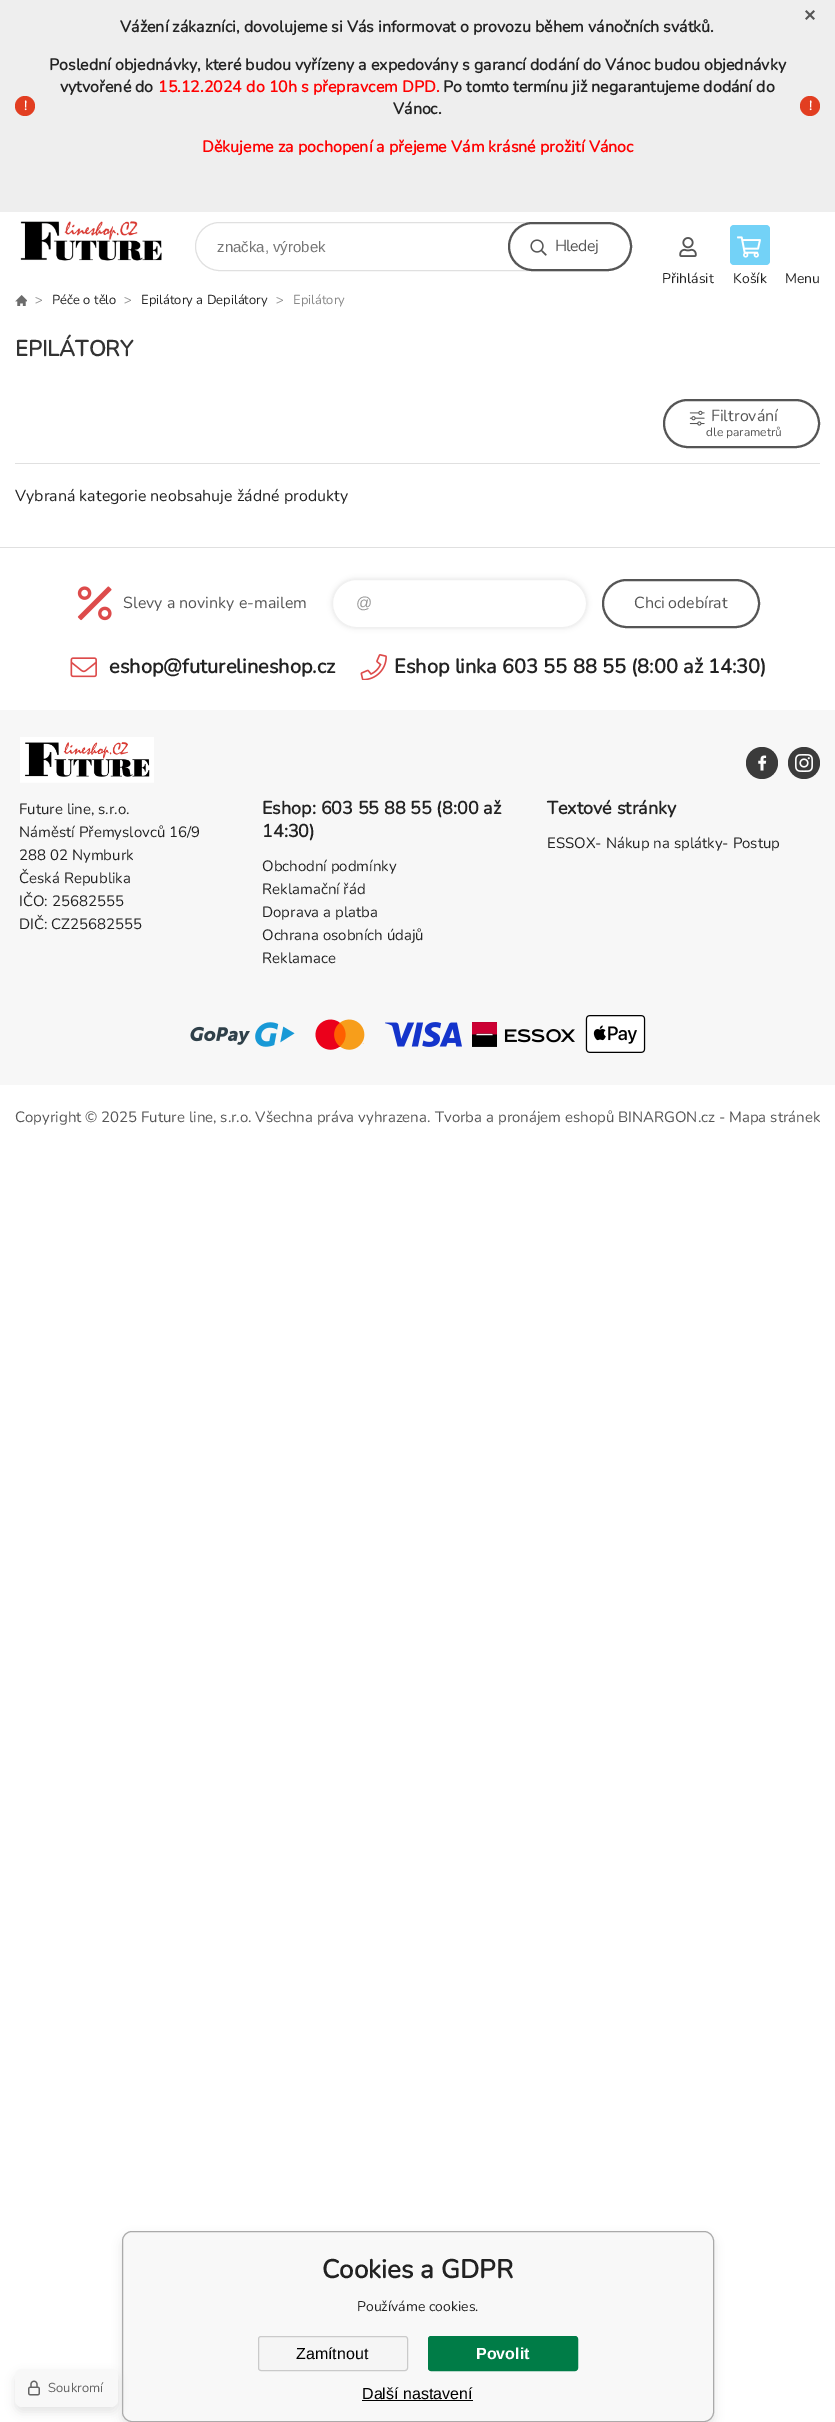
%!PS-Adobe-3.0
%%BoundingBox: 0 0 835 2422
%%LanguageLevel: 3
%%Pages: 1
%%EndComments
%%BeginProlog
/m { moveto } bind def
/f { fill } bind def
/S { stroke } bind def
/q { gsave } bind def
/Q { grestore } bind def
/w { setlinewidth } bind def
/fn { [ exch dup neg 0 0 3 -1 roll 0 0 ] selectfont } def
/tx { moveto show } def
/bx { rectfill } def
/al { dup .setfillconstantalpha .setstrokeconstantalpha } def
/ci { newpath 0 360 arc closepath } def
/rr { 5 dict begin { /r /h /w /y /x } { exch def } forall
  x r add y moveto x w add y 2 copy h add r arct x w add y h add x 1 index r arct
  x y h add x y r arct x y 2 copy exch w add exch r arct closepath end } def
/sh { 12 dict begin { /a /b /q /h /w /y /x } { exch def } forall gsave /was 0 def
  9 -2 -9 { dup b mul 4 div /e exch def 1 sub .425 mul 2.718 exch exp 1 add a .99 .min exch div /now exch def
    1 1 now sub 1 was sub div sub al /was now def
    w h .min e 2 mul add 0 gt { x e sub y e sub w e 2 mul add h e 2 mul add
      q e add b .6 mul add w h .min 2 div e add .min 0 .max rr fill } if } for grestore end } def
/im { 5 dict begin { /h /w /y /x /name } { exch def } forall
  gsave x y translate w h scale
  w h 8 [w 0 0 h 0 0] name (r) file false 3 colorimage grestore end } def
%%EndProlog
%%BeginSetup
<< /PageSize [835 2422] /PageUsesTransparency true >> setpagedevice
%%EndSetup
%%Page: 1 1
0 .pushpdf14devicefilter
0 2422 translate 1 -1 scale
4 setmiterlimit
1 setgray
0 0 835 2422 bx
0.933 setgray
0 0 835 212 bx
(image0.raw) 805 10 10 10 im
/Nunito-Bold 16 fn
0.133 setgray
(Vážení zákazníci, dovolujeme si Vás informovat o provozu během vánočních svátků.) 120 32 tx
0.886 0.243 0.129 setrgbcolor
25 106 10 ci f
/Nunito-Bold 13 fn
1 setgray
(!) 24 110 tx
/Nunito-Bold 16 fn
0.133 setgray
(Poslední objednávky, které budou vyřízeny a expedovány s garancí dodání do Vánoc budou objednávky) 49 70 tx
(vytvořené do) 60 92 tx
1 0 0 setrgbcolor
(15.12.2024 do 10h s přepravcem DPD.) 158 92 tx
0.133 setgray
(Po tomto termínu již negarantujeme dodání do) 443 92 tx
(Vánoc.) 393 114 tx
0.886 0.243 0.129 setrgbcolor
810 106 10 ci f
/Nunito-Bold 13 fn
1 setgray
(!) 809 110 tx
/Nunito-Bold 16 fn
1 0 0 setrgbcolor
(Děkujeme za pochopení a přejeme Vám krásné prožití Vánoc) 202 152 tx
(image1.raw) 20 221 142 40 im
0.878 setgray
195.5 222.5 436 48 24 rr S
/LiberationSans-Regular 15 fn
0.459 setgray
(značka, výrobek) 217 252 tx
(image2.raw) 530 239 17 17 im
0.333 setgray
2 w
509 223 122 47 23.5 rr S
/Nunito-ExtraLight 16 fn
555 251 m -0.75 0 (Hledej) ashow
(image3.raw) 679 237 18 20 im
/Nunito-ExtraLight 14 fn
0.133 setgray
(Přihlásit) 662 283 tx
0.451 0.824 0.969 setrgbcolor
730 225 40 40 4 rr f
(image4.raw) 737 236 24 22 im
0.133 setgray
(Košík) 733 283 tx
(Menu) 785 283 tx
(image5.raw) 15 295 12 11 im
/Nunito-ExtraLight 13 fn
0.533 setgray
(>) 35 304 tx
0.133 setgray
(Péče o tělo) 52 304 tx
0.533 setgray
(>) 124 304 tx
0.133 setgray
(Epilátory a Depilátory) 141 304 tx
0.533 setgray
(>) 276 304 tx
(Epilátory) 293 304 tx
/Nunito-Bold 22 fn
0.2 setgray
(EPILÁTORY) 15 356 tx
0.878 setgray
15 463 805 1 bx
(image6.raw) 689 410 16 16 im
0.333 setgray
664 400 155 47 23.5 rr S
/Nunito-ExtraLight 16 fn
(Filtrování) 711 421 tx
/Nunito-ExtraLight 12 fn
(dle parametrů) 706 436 tx
/Nunito-ExtraLight 16 fn
0.133 setgray
(Vybraná kategorie neobsahuje žádné produkty) 15 501 tx
0.878 setgray
0 547 835 1 bx
(image7.raw) 77 586 35 35 im
0.333 setgray
(Slevy a novinky e-mailem) 123 608 tx
0 setgray
332 579 255 49 24.5 2.5 0.1 sh
1 setgray
332.5 579.5 254 48 24 rr q f Q
0.941 setgray
1 w
S
/LiberationSans-Regular 16 fn
0.6 setgray
(@) 356 608 tx
0.333 setgray
2 w
603 580 156 47 23.5 rr S
/Nunito-ExtraLight 16 fn
(Chci) 634 608 tx
(odebírat) 668 608 tx
(image8.raw) 70 657 27 21 im
/Nunito-Bold 20 fn
0.133 setgray
(eshop@futurelineshop.cz) 109 673 tx
(image9.raw) 360 654 27 26 im
(Eshop linka 603 55 88 55 \(8:00 až 14:30\)) 394 673 tx
0.969 setgray
0 710 835 375 bx
(image10.raw) 20 737 134 46 im
0.231 setgray
762 763 16 ci f
(image11.raw) 758 755 9 16 im
804 763 16 ci f
(image12.raw) 795 754 18 18 im
/Nunito-ExtraLight 15 fn
0.133 setgray
(Future line, s.r.o.) 19 814 tx
(Náměstí Přemyslovců 16/9) 19 837 tx
(288 02 Nymburk) 19 860 tx
(Česká Republika) 19 883 tx
(IČO: 25682555) 19 906 tx
(DIČ: CZ25682555) 19 929 tx
/Nunito-Bold 18 fn
(Eshop: 603 55 88 55 \(8:00 až) 262 814 tx
(14:30\)) 262 837 tx
/Nunito-ExtraLight 15 fn
(Obchodní podmínky) 262 871 tx
(Reklamační řád) 262 894 tx
(Doprava a platba) 262 917 tx
(Ochrana osobních údajů) 262 940 tx
(Reklamace) 262 963 tx
/Nunito-Bold 18 fn
(Textové stránky) 547 814 tx
/Nunito-ExtraLight 15 fn
(ESSOX- Nákup na splátky- Postup) 547 848 tx
(image13.raw) 190 1022 105 25 im
(image14.raw) 315 1019 50 31 im
(image15.raw) 385 1022 77 25 im
(image16.raw) 472 1022 103 25 im
(image17.raw) 585 1015 61 38 im
0.333 setgray
(Copyright © 2025 Future line, s.r.o. Všechna práva vyhrazena.) 15 1122 tx
(Tvorba a pronájem eshopů BINARGON.cz - Mapa stránek) 435 1122 tx
0.784 setgray
122 2236 592 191 10 5 0.5 sh
0.973 setgray
122.5 2231.5 591 190 9.5 rr q f Q
0.667 setgray
1 w
S
0.784 setgray
15 2374 103 38 7 5 0.5 sh
0.973 setgray
15 2369 103 38 7 rr f
(image18.raw) 28 2380 12 16 im
/Nunito-ExtraLight 13 fn
0.392 setgray
(Soukromí) 48 2392 tx
/Nunito-Bold 26 fn
0.133 setgray
(Cookies a GDPR) 322 2278 tx
/Nunito-ExtraLight 14 fn
(Používáme cookies.) 357 2311 tx
0.961 setgray
258.5 2336.5 149 34 2.5 rr q f Q
0.792 setgray
S
/LiberationSans-Regular 16 fn
0 setgray
(Zamítnout) 296 2359 tx
0 0.486 0.278 setrgbcolor
428.5 2336.5 149 34 2.5 rr q f Q
S
/LiberationSans-Bold 16 fn
1 setgray
(Povolit) 476 2359 tx
/LiberationSans-Regular 16 fn
0 setgray
(Další nastavení) 362 2399 tx
362 2400 111 1 bx
.poppdf14devicefilter showpage
%%EOF
